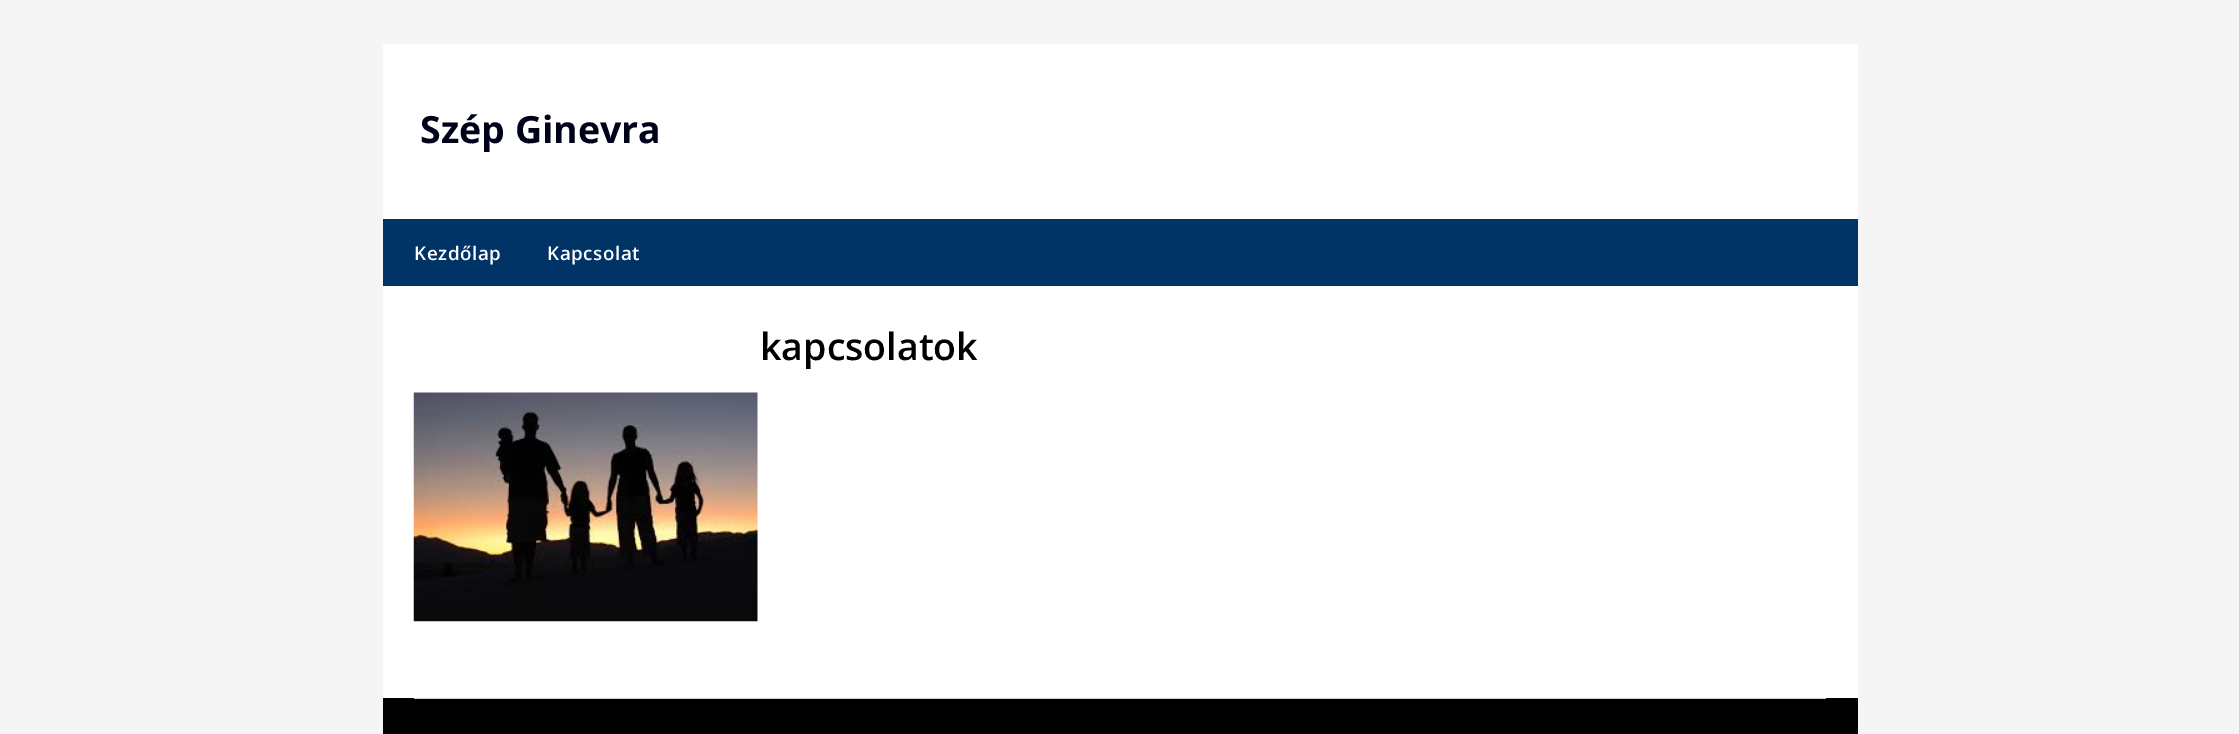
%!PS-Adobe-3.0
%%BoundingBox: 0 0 2239 734
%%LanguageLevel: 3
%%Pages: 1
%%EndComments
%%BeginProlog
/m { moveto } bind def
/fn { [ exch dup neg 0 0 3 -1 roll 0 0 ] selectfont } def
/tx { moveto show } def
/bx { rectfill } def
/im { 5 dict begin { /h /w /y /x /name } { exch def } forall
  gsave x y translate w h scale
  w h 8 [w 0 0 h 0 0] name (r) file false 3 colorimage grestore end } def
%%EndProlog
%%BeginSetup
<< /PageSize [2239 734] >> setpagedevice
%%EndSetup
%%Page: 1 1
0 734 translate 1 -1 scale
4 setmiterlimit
0.961 setgray
0 0 2239 734 bx
1 setgray
383 44 1475 175 bx
/OpenSans-Bold 37.5 fn
0 0.008 0.102 setrgbcolor
(Szép Ginevra) 420 143 tx
0 0.2 0.4 setrgbcolor
383 219 1475 67 bx
/OpenSans-SemiBold 18.75 fn
1 setgray
414 260 m 0.6 0 (Kezdőlap) ashow
547 260 m 0.6 0 (Kapcsolat) ashow
383 286 1475 412 bx
/OpenSans-SemiBold 37.5 fn
0 setgray
(kapcsolatok) 760 360 tx
(image0.raw) 413 392 345 230 im
383 698 1475 36 bx
0.8 setgray
414 698 1412 1 bx
showpage
%%EOF
